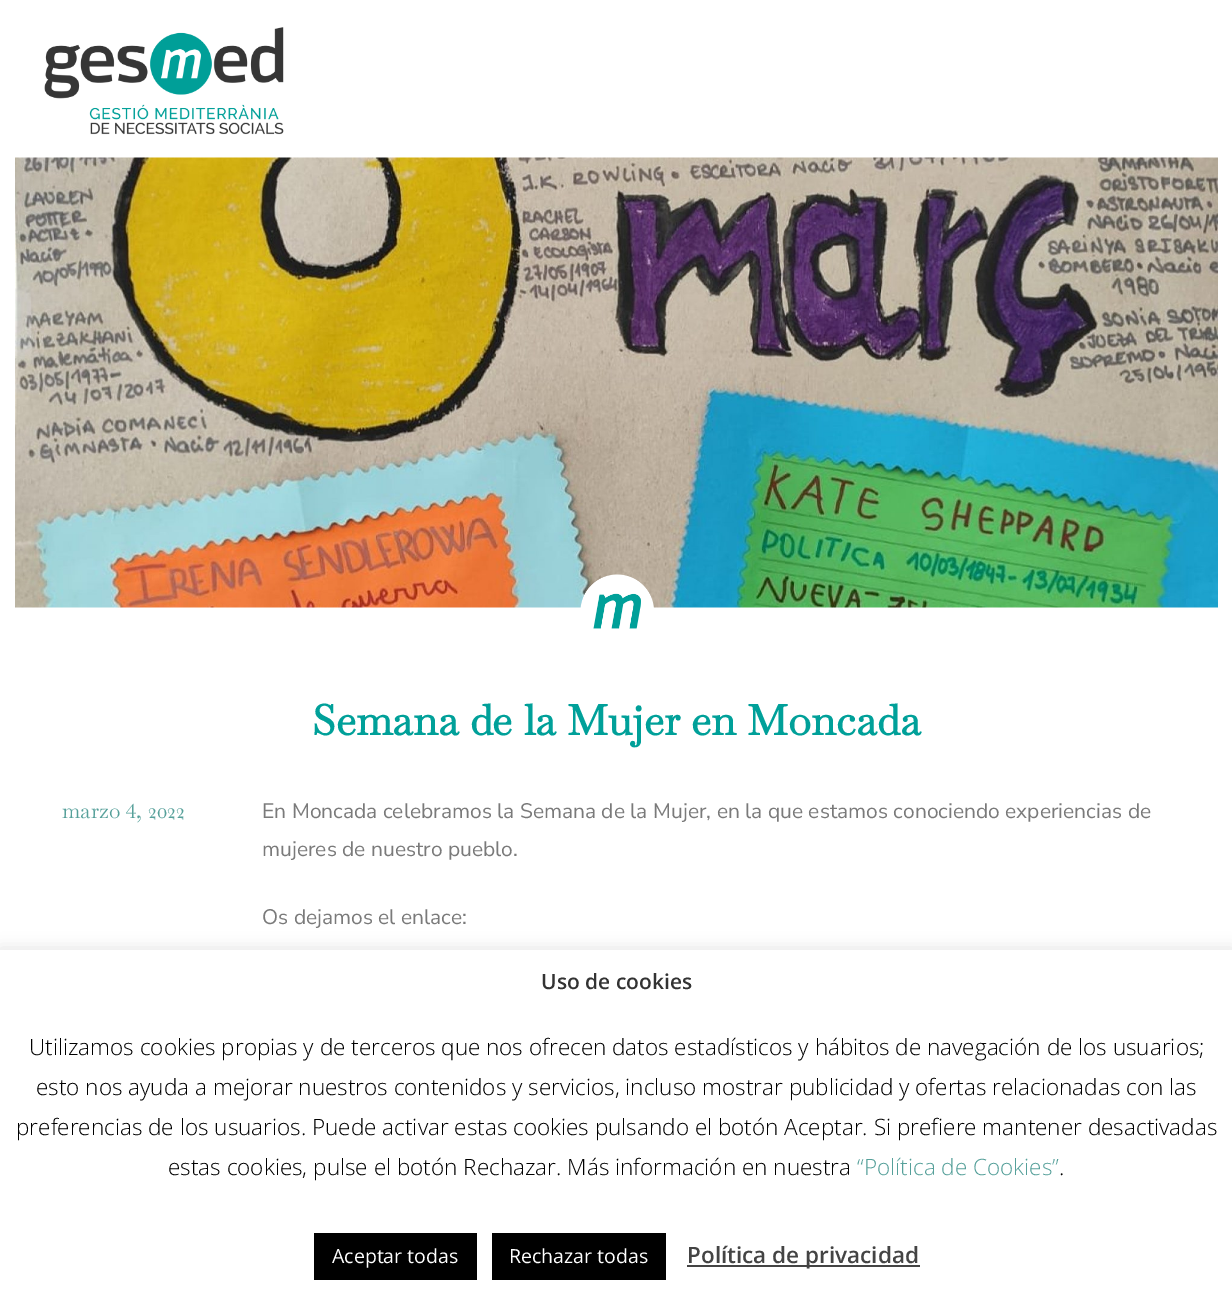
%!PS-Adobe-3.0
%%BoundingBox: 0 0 1232 1304
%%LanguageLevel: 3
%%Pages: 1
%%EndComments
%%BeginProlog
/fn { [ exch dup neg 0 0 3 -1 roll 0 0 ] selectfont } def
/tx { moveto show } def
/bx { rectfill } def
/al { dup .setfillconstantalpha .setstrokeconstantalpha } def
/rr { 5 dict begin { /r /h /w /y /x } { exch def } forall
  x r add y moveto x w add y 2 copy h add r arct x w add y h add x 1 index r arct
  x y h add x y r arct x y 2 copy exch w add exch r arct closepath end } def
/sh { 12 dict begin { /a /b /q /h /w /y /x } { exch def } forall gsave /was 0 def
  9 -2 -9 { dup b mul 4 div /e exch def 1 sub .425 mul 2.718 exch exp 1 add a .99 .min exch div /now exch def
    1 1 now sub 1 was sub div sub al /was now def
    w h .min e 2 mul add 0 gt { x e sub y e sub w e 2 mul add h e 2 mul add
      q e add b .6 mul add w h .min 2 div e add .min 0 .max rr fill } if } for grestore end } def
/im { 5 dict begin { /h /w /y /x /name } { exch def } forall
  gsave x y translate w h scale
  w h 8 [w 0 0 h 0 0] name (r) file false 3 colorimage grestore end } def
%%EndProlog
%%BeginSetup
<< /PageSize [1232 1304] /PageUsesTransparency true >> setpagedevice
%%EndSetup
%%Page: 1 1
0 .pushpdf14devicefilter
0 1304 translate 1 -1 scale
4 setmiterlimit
1 setgray
0 0 1232 1304 bx
(image0.raw) 44 27 240 108 im
(image1.raw) 15 157 1203 451 im
(image2.raw) 580 574 74 55 im
/Baskervville-Bold 42 fn
0 0.627 0.6 setrgbcolor
(Semana de la Mujer en Moncada) 312 735 tx
/Baskervville-Regular 21 fn
0.337 0.627 0.604 setrgbcolor
(marzo 4, 2022) 62 818 tx
/NunitoSans-Regular 21 fn
0.478 setgray
(En Moncada celebramos la Semana de la Mujer, en la que estamos conociendo experiencias de) 262 818 tx
(mujeres de nuestro pueblo.) 262 856 tx
(Os dejamos el enlace:) 262 924 tx
0.675 0.671 0.671 setrgbcolor
0 948 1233 356 0 7.5 0.3 sh
1 setgray
0 950 1232 354 bx
/OpenSans-SemiBold 21 fn
0.2 setgray
(Uso de cookies) 541 989 tx
/OpenSans-Light 22.5 fn
0 setgray
(Utilizamos cookies propias y de terceros que nos ofrecen datos estadísticos y hábitos de navegación de los usuarios;) 29 1055 tx
(esto nos ayuda a mejorar nuestros contenidos y servicios, incluso mostrar publicidad y ofertas relacionadas con las) 36 1095 tx
(preferencias de los usuarios. Puede activar estas cookies pulsando el botón Aceptar. Si prefiere mantener desactivadas) 16 1135 tx
(estas cookies, pulse el botón Rechazar. Más información en nuestra) 168 1175 tx
0.337 0.627 0.604 setrgbcolor
(“Política de Cookies”) 857 1175 tx
0 setgray
(.) 1059 1175 tx
314 1233 163 47 bx
/OpenSans-Regular 19.5 fn
1 setgray
(Aceptar todas) 332 1263 tx
0 setgray
492 1233 174 47 bx
1 setgray
(Rechazar todas) 509 1263 tx
0.267 setgray
687 1265 233 2 bx
/OpenSans-SemiBold 22.5 fn
(Política de privacidad) 687 1263 tx
.poppdf14devicefilter showpage
%%EOF
